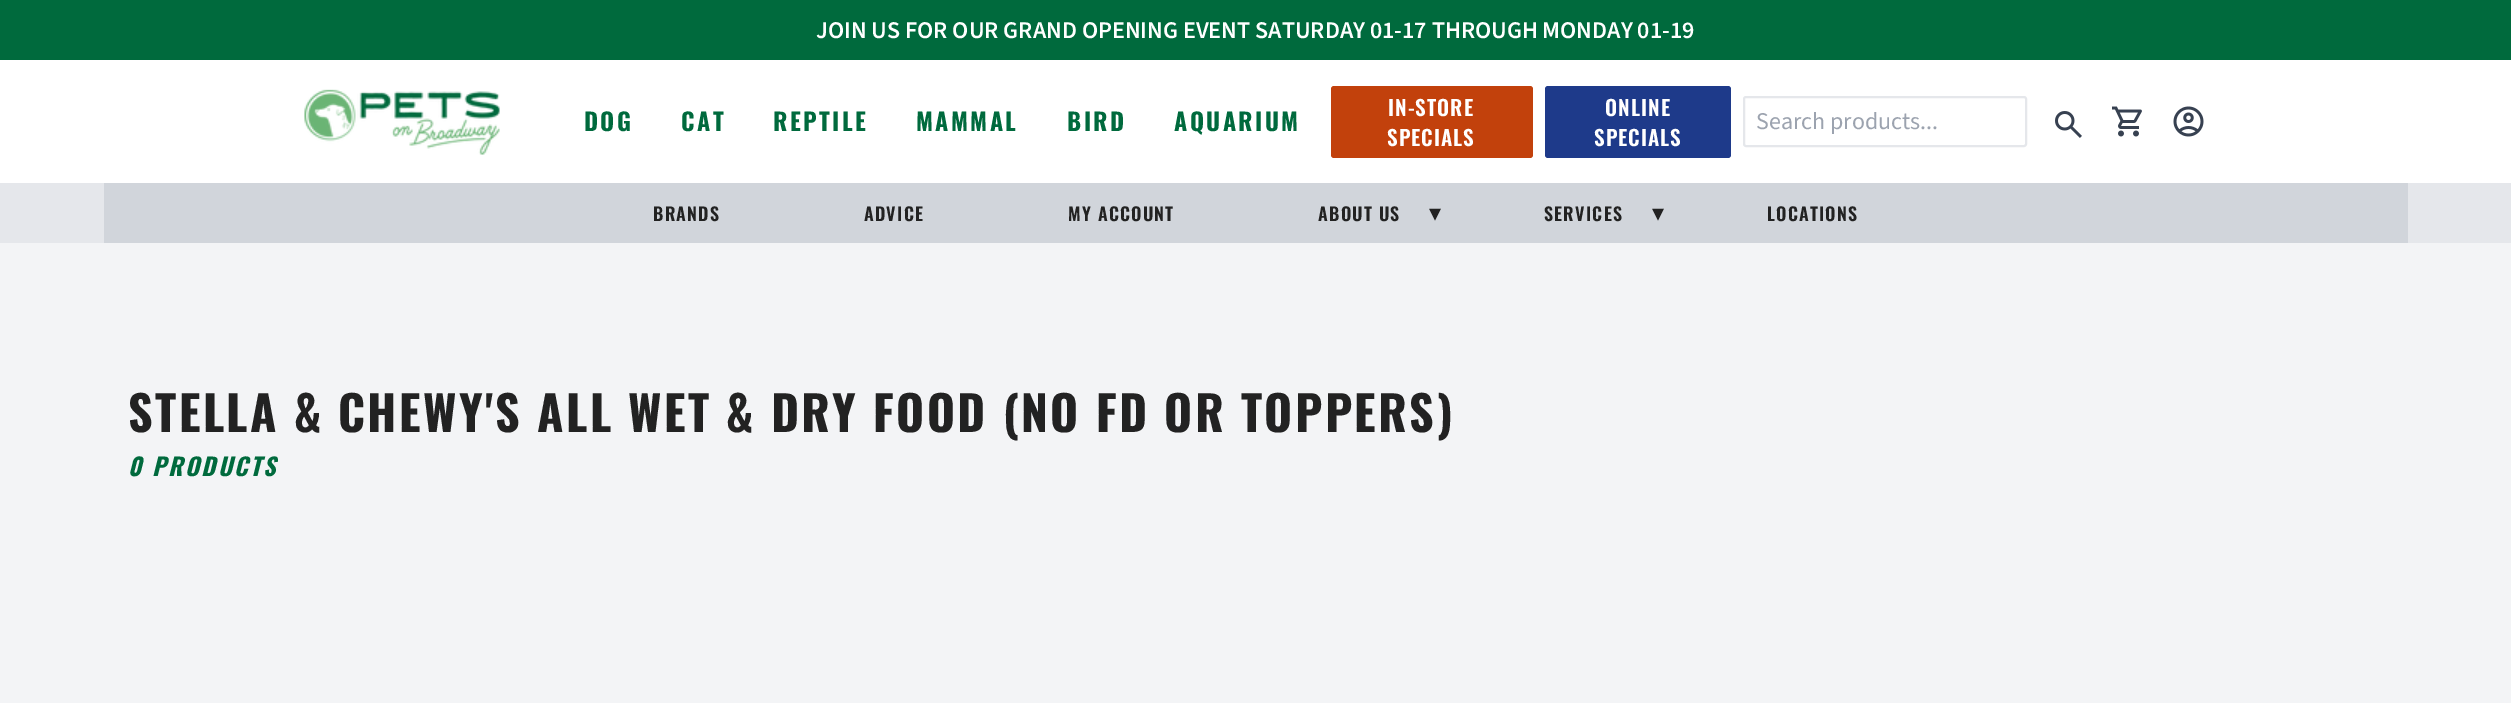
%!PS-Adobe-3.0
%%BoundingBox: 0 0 2511 703
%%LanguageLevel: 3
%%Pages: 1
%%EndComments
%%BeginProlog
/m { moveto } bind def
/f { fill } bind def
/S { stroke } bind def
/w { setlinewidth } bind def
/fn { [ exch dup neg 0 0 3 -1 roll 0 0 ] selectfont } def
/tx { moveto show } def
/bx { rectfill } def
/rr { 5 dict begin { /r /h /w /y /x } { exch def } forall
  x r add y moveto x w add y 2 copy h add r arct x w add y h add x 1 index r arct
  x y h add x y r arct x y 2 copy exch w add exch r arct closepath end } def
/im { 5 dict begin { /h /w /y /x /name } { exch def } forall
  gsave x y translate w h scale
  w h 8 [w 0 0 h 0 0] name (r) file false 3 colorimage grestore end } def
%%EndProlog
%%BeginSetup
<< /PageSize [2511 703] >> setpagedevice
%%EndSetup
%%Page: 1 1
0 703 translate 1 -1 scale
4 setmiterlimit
0 0.416 0.239 setrgbcolor
0 0 2511 703 bx
/SourceSans3-SemiBold 24 fn
1 setgray
(JOIN US FOR OUR GRAND OPENING EVENT SATURDAY 01-17 THROUGH MONDAY 01-19) 816 38 tx
0.898 0.906 0.922 setrgbcolor
0 183 2511 60 bx
1 setgray
0 60 2511 123 bx
(image0.raw) 304 89 196 66 im
/Oswald-Bold 24 fn
0 0.416 0.239 setrgbcolor
584 131 m 2.4 0 (DOG) ashow
681 131 m 2.4 0 (CAT) ashow
773 131 m 2.4 0 (REPTILE) ashow
916 131 m 2.4 0 (MAMMAL) ashow
1067 131 m 2.4 0 (BIRD) ashow
1174 131 m 2.4 0 (AQUARIUM) ashow
0.761 0.255 0.047 setrgbcolor
1331 86 202 72 3 rr f
/Oswald-SemiBold 21 fn
1 setgray
1388 116 m 1 0 (IN-STORE) ashow
1387 146 m 1 0 (SPECIALS) ashow
0.118 0.227 0.541 setrgbcolor
1545 86 186 72 3 rr f
1 setgray
1605 116 m 1 0 (ONLINE) ashow
1594 146 m 1 0 (SPECIALS) ashow
0.898 0.906 0.922 setrgbcolor
2 w
1744 97 282 49 2 rr S
/SourceSans3-ExtraLight 24 fn
0.612 0.639 0.686 setrgbcolor
(Search products...) 1756 129 tx
(image1.raw) 2055 111 27 27 im
(image2.raw) 2112 106 30 31 im
(image3.raw) 2173 106 31 31 im
0.82 0.835 0.859 setrgbcolor
104 183 2304 60 bx
/Oswald-SemiBold 18 fn
0.133 setgray
653 221 m 1.25 0 (BRANDS) ashow
864 221 m 1.25 0 (ADVICE) ashow
1068 221 m 1.25 0 (MY ACCOUNT) ashow
1318 221 m 1.25 0 (ABOUT US) ashow
/DejaVuSans-Regular 24 fn
1429 221 m 1.25 0 (▾) ashow
/Oswald-SemiBold 18 fn
1544 221 m 1.25 0 (SERVICES) ashow
/DejaVuSans-Regular 24 fn
1652 221 m 1.25 0 (▾) ashow
/Oswald-SemiBold 18 fn
1767 221 m 1.25 0 (LOCATIONS) ashow
0.953 0.957 0.965 setrgbcolor
0 243 2511 460 bx
/Oswald-Bold 48 fn
0.133 setgray
128 432 m 2.4 0 (STELLA & CHEWY'S ALL WET & DRY FOOD \(NO FD OR TOPPERS\)) ashow
/Oswald-BoldItalic 24 fn
0 0.416 0.239 setrgbcolor
128 476 m 2.4 0 (0 PRODUCTS) ashow
showpage
%%EOF
